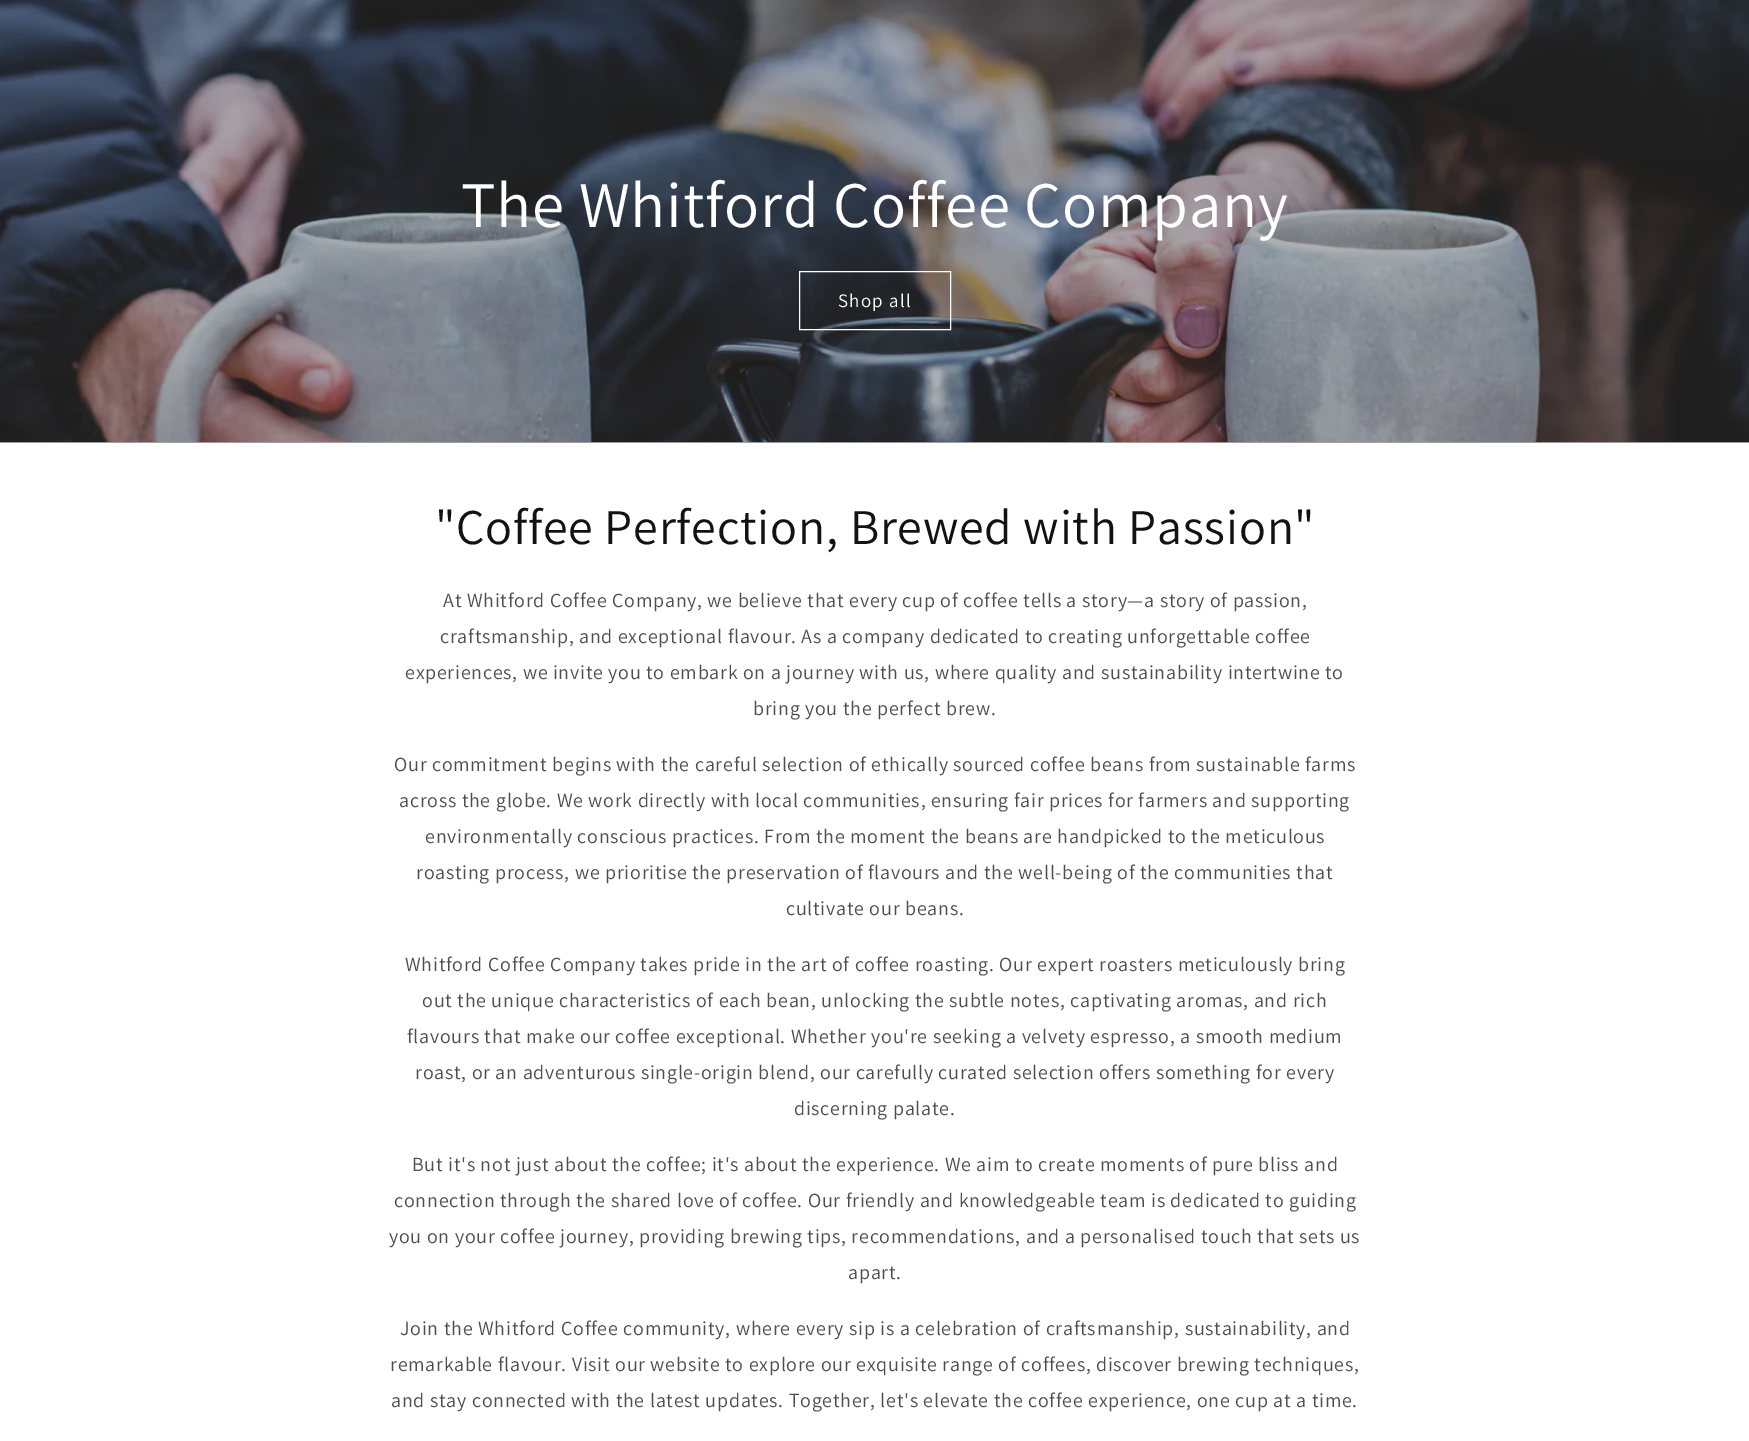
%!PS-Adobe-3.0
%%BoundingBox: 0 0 1749 1441
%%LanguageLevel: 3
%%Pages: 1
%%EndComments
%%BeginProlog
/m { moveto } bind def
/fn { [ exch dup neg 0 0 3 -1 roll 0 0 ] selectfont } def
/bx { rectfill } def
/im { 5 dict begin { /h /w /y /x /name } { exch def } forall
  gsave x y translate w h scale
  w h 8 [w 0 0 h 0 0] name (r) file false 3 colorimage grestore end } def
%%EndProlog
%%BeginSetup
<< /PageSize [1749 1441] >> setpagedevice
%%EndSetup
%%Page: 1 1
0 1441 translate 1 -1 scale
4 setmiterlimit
1 setgray
0 0 1749 1441 bx
0.635 setgray
0 442 1749 1 bx
(image0.raw) 0 0 1749 443 im
/Assistant-Regular 65 fn
1 setgray
461 227 m 0.75 0 (The Whitford Coffee Company) ashow
799.5 271.5 151 58 rectstroke
/Assistant-Regular 19 fn
838 307 m 1.25 0 (Shop all) ashow
/Assistant-Regular 50 fn
0.071 setgray
435 544 m 0.75 0 ("Coffee Perfection, Brewed with Passion") ashow
/Assistant-Regular 20 fn
0.302 setgray
443 607 m 0.75 0 (At Whitford Coffee Company, we believe that every cup of coffee tells a story—a story of passion,) ashow
440 643 m 0.75 0 (craftsmanship, and exceptional flavour. As a company dedicated to creating unforgettable coffee) ashow
405 679 m 0.75 0 (experiences, we invite you to embark on a journey with us, where quality and sustainability intertwine to) ashow
753 715 m 0.75 0 (bring you the perfect brew.) ashow
394 771 m 0.75 0 (Our commitment begins with the careful selection of ethically sourced coffee beans from sustainable farms) ashow
399 807 m 0.75 0 (across the globe. We work directly with local communities, ensuring fair prices for farmers and supporting) ashow
425 843 m 0.75 0 (environmentally conscious practices. From the moment the beans are handpicked to the meticulous) ashow
416 879 m 0.75 0 (roasting process, we prioritise the preservation of flavours and the well-being of the communities that) ashow
786 915 m 0.75 0 (cultivate our beans.) ashow
405 971 m 0.75 0 (Whitford Coffee Company takes pride in the art of coffee roasting. Our expert roasters meticulously bring) ashow
422 1007 m 0.75 0 (out the unique characteristics of each bean, unlocking the subtle notes, captivating aromas, and rich) ashow
407 1043 m 0.75 0 (flavours that make our coffee exceptional. Whether you're seeking a velvety espresso, a smooth medium) ashow
415 1079 m 0.75 0 (roast, or an adventurous single-origin blend, our carefully curated selection offers something for every) ashow
794 1115 m 0.75 0 (discerning palate.) ashow
412 1171 m 0.75 0 (But it's not just about the coffee; it's about the experience. We aim to create moments of pure bliss and) ashow
394 1207 m 0.75 0 (connection through the shared love of coffee. Our friendly and knowledgeable team is dedicated to guiding) ashow
389 1243 m 0.75 0 (you on your coffee journey, providing brewing tips, recommendations, and a personalised touch that sets us) ashow
848 1279 m 0.75 0 (apart.) ashow
400 1335 m 0.75 0 (Join the Whitford Coffee community, where every sip is a celebration of craftsmanship, sustainability, and) ashow
390 1371 m 0.75 0 (remarkable flavour. Visit our website to explore our exquisite range of coffees, discover brewing techniques,) ashow
391 1407 m 0.75 0 (and stay connected with the latest updates. Together, let's elevate the coffee experience, one cup at a time.) ashow
showpage
%%EOF
